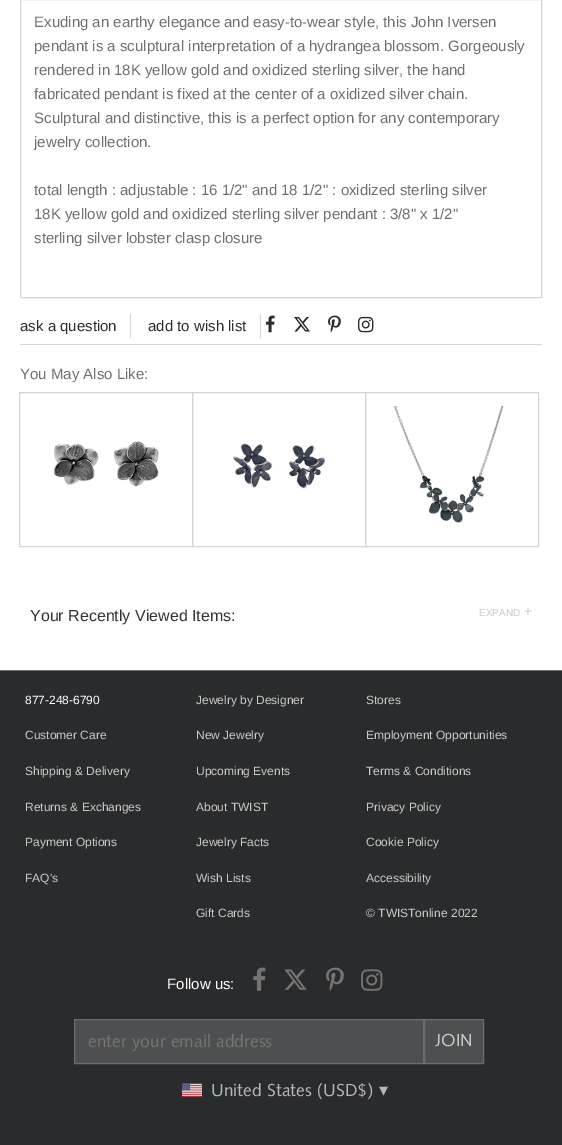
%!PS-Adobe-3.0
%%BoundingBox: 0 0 562 1145
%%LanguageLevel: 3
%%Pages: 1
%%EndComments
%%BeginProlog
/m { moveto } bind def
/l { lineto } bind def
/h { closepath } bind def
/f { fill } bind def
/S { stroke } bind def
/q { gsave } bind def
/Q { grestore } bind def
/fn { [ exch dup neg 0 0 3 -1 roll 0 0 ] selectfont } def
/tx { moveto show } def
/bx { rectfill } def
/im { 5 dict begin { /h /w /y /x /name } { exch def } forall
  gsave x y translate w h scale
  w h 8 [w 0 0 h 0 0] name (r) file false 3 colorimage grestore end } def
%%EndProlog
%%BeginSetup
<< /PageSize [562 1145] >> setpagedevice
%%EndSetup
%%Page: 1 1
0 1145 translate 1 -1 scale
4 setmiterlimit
1 setgray
0 0 562 1145 bx
0.831 0.835 0.835 setrgbcolor
20.5 -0.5 521 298 rectstroke
/LiberationSans-Regular 15 fn
0.427 0.435 0.447 setrgbcolor
(Exuding an earthy elegance and easy-to-wear style, this John Iversen) 34 27 tx
(pendant is a sculptural interpretation of a hydrangea blossom. Gorgeously) 34 51 tx
(rendered in 18K yellow gold and oxidized sterling silver, the hand) 34 75 tx
(fabricated pendant is fixed at the center of a oxidized silver chain.) 34 99 tx
(Sculptural and distinctive, this is a perfect option for any contemporary) 34 123 tx
(jewelry collection.) 34 147 tx
(total length : adjustable : 16 1/2" and 18 1/2" : oxidized sterling silver) 34 195 tx
(18K yellow gold and oxidized sterling silver pendant : 3/8" x 1/2") 34 219 tx
(sterling silver lobster clasp closure) 34 243 tx
0.831 0.835 0.835 setrgbcolor
20 344 522 1 bx
130 314 1 24 bx
0.165 0.169 0.176 setrgbcolor
(ask a question) 20 331 tx
0.831 0.835 0.835 setrgbcolor
260 314 1 24 bx
0.165 0.169 0.176 setrgbcolor
(add to wish list) 148 331 tx
(image0.raw) 265 315 10 18 im
(image1.raw) 294 316 16 16 im
(image2.raw) 328 315 13 18 im
(image3.raw) 358 316 16 17 im
0.427 0.435 0.447 setrgbcolor
(You May Also Like:) 20 379 tx
0.831 0.835 0.835 setrgbcolor
19.5 392.5 173 154 rectstroke
(image4.raw) 53 440 106 47 im
192.5 392.5 173 154 rectstroke
(image5.raw) 233 443 92 46 im
365.5 392.5 173 154 rectstroke
(image6.raw) 393 406 111 117 im
/LiberationSans-Regular 16 fn
0.2 setgray
(Your Recently Viewed Items:) 30 621 tx
/LiberationSans-Regular 10 fn
0.792 0.792 0.788 setrgbcolor
(EXPAND) 479 616 tx
/LiberationSans-Regular 14 fn
(+) 524 616 tx
0.165 0.169 0.176 setrgbcolor
0 671 562 474 bx
0.424 0.431 0.431 setrgbcolor
0 670 562 1 bx
/LiberationSans-Regular 12 fn
1 setgray
(877-248-6790) 25 704 tx
0.792 0.792 0.788 setrgbcolor
(Customer Care) 25 739 tx
(Shipping & Delivery) 25 775 tx
(Returns & Exchanges) 25 811 tx
(Payment Options) 25 846 tx
(FAQ's) 25 882 tx
(Jewelry by Designer) 196 704 tx
(New Jewelry) 196 739 tx
(Upcoming Events) 196 775 tx
(About TWIST) 196 811 tx
(Jewelry Facts) 196 846 tx
(Wish Lists) 196 882 tx
(Gift Cards) 196 917 tx
(Stores) 366 704 tx
(Employment Opportunities) 366 739 tx
(Terms & Conditions) 366 775 tx
(Privacy Policy) 366 811 tx
(Cookie Policy) 366 846 tx
(Accessibility) 366 882 tx
(© TWISTonline 2022) 366 917 tx
/LiberationSans-Regular 15 fn
1 setgray
(Follow us:) 167 989 tx
(image7.raw) 253 967 13 24 im
(image8.raw) 284 969 23 21 im
(image9.raw) 326 967 18 24 im
(image10.raw) 361 969 22 22 im
0.302 0.31 0.314 setrgbcolor
74.5 1019.5 m 423.5 1019.5 l 423.5 1063.5 l 74.5 1063.5 l h q f Q
0.424 0.431 0.431 setrgbcolor
S
/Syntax-Regular 18 fn
0.459 setgray
(enter your email address) 88 1047 tx
0.302 0.31 0.314 setrgbcolor
424.5 1019.5 m 483.5 1019.5 l 483.5 1063.5 l 424.5 1063.5 l h q f Q
0.424 0.431 0.431 setrgbcolor
S
0.792 0.792 0.788 setrgbcolor
(JOIN) 435 1046 tx
(image11.raw) 182 1083 20 14 im
0.718 0.718 0.722 setrgbcolor
(United States \(USD$\)) 211 1096 tx
/DejaVuSans-Regular 18 fn
(▾) 379 1096 tx
showpage
%%EOF
